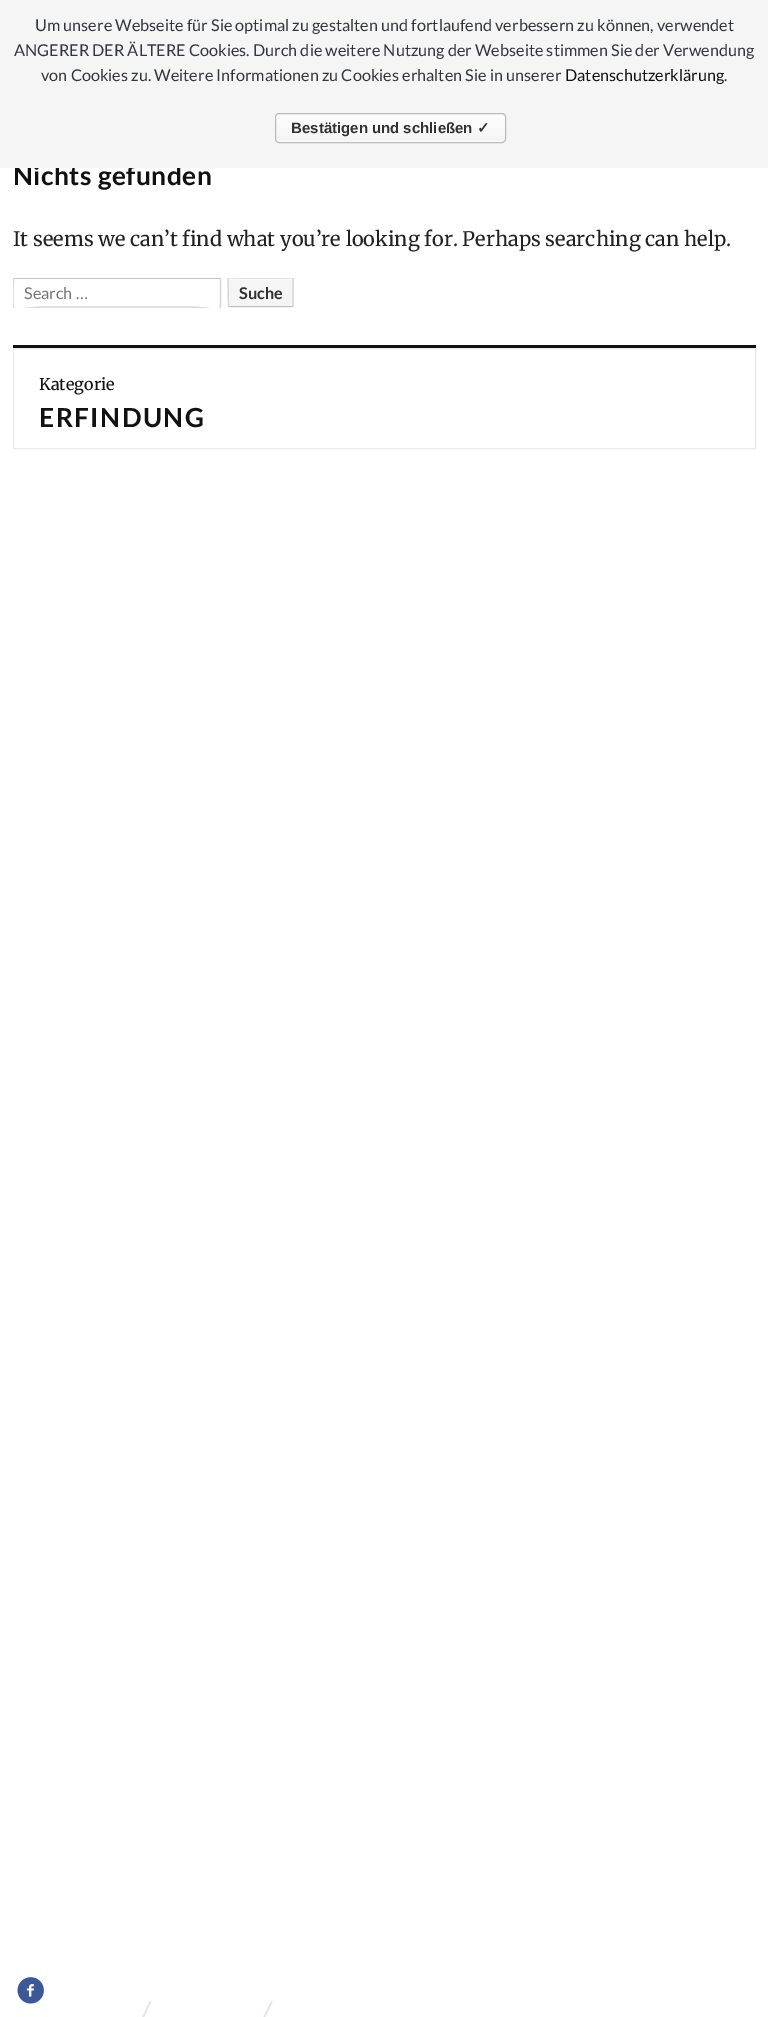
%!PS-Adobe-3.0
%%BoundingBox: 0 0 768 2017
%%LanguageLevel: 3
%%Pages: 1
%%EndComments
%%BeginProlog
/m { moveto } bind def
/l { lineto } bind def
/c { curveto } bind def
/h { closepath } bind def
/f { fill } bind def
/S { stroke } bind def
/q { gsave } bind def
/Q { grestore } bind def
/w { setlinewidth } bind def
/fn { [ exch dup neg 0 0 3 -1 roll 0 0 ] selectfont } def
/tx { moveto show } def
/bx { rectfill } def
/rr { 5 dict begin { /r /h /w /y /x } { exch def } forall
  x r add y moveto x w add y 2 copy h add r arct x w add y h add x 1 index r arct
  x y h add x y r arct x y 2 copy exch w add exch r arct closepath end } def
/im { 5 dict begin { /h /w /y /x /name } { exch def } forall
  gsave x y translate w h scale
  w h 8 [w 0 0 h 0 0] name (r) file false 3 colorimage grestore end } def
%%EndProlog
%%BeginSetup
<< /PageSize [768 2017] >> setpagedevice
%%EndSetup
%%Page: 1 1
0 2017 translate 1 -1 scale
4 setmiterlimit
1 setgray
0 0 768 2017 bx
/Lato-Bold 26.25 fn
0.067 setgray
13 185 m 0.5 0 (Nichts gefunden) ashow
0.961 setgray
0 0 768 168 bx
/Lato-Regular 16.25 fn
0.196 0.216 0.235 setrgbcolor
(Um unsere Webseite für Sie optimal zu gestalten und fortlaufend verbessern zu können, verwendet) 35 31 tx
(ANGERER DER ÄLTERE Cookies. Durch die weitere Nutzung der Webseite stimmen Sie der Verwendung) 14 56 tx
(von Cookies zu. Weitere Informationen zu Cookies erhalten Sie in unserer) 41 81 tx
0.067 setgray
(Datenschutzerklärung) 565 81 tx
0.196 0.216 0.235 setrgbcolor
(.) 724 81 tx
q
275 113 231 30 4 rr clip newpath
q 275 114 m 506 114 l 506 141 l 275 141 l h clip newpath
<< /ShadingType 2 /ColorSpace /DeviceRGB /Coords [391 114 391 141] /Extend [true true] /Function << /FunctionType 2 /Domain [0 1] /C0 [0.996 0.996 0.996] /C1 [0.957 0.957 0.957] /N 1 >> >> shfill Q
q 275 141 m 506 141 l 506 143 l 275 143 l h clip newpath
<< /ShadingType 2 /ColorSpace /DeviceRGB /Coords [391 141 391 169] /Extend [true true] /Function << /FunctionType 2 /Domain [0 1] /C0 [0.996 0.996 0.996] /C1 [0.957 0.957 0.957] /N 1 >> >> shfill Q
Q
0.733 setgray
275.5 113.5 230 29 3.5 rr S
/LiberationSans-Bold 15 fn
0.192 setgray
(Bestätigen und schließen) 291 133 tx
/DejaVuSans-Bold 15 fn
(✓) 477 133 tx
0.067 setgray
13 345 743 3 bx
/Merriweather-Light 20 fn
0.133 setgray
(It seems we can’t find what you’re looking for. Perhaps searching can help.) 13 246 tx
0.773 setgray
14 278 207 1 bx
q
13 278 743 30 rectclip
0.843 setgray
1.2 w
220.5 278.5 m 220.5 292.5 l 220.5 318 224 307 185.5 307 c 48 307 l 9.5 307 13 318 13 292.5 c 13.5 278.5 l S
Q
/Lato-Regular 16.25 fn
0.459 setgray
(Search …) 24 299 tx
0.961 setgray
228 278 66 30 1 rr f
0.98 setgray
229 279 64 1 bx
0.741 setgray
229 306 64 1 bx
q
13 278 743 30 rectclip
0.843 setgray
1.2 w
228.5 306.5 m 228 283.5 l 228 275 227.5 278 239.5 278 c 282 278 l 296 278 293 275 293 288 c 293 306.5 l S
Q
/Lato-Bold 16.25 fn
0.192 setgray
(Suche) 239 299 tx
0.918 setgray
13.5 348.5 742 100 rectstroke
/Merriweather-Light 16.25 fn
0.067 setgray
(Kategorie) 39 390 tx
/Lato-Bold 26.25 fn
39 427 m 1.5 0 (ERFINDUNG) ashow
(image0.raw) 17 1977 27 27 im
(image1.raw) 142 2001 10 16 im
(image2.raw) 263 2001 10 16 im
showpage
%%EOF
